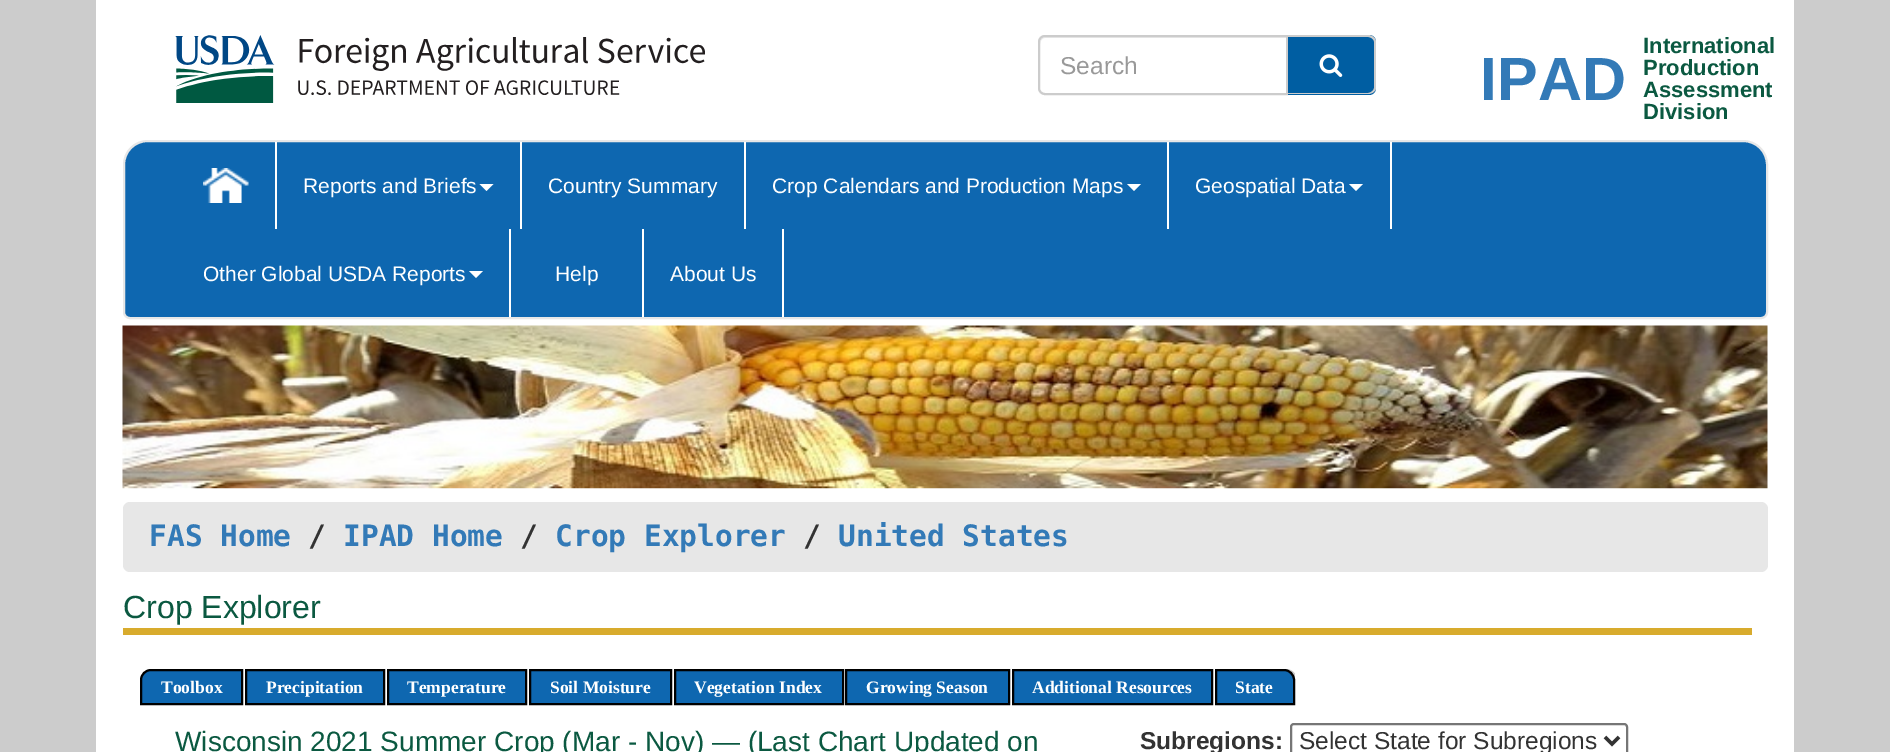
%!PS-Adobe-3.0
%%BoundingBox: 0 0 1890 752
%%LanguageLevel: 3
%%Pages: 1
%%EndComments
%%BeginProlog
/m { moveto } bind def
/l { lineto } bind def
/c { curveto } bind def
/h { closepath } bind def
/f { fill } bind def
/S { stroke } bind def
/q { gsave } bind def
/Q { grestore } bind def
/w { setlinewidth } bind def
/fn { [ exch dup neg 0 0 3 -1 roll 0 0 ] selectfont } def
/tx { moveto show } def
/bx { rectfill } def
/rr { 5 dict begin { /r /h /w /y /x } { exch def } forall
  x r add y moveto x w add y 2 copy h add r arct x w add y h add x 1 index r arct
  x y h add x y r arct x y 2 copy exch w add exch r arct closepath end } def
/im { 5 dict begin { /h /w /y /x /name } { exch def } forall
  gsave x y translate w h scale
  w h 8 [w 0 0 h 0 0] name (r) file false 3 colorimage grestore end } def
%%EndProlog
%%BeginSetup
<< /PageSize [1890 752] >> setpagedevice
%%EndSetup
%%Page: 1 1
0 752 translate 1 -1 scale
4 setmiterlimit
0.8 setgray
0 0 1890 752 bx
1 setgray
96 0 1698 752 bx
(image0.raw) 175 35 530 68 im
0.925 setgray
1045 38 m 1286 38 l 1286 37 l 1045 37 l 1041 37 1040 41 1040 44 c 1040 41 1042 38 1045 38 c h f
0.8 setgray
2 w
1045 36 m 1287 36 l 1287 94 l 1045 94 l 1041.5 94 1039 91.5 1039 88 c 1039 42 l 1039 38.5 1041.5 36 1045 36 c h S
/LiberationSans-Regular 24.5 fn
0.6 setgray
(Search) 1060 74 tx
0 0.369 0.635 setrgbcolor
1288 35 m 1369 35 l 1373 35 1376 38 1376 42 c 1376 88 l 1376 92 1373 95 1369 95 c 1288 95 l h f
0.8 setgray
1288 35 m 1368 35 l 1372 35 1376 38 1376 42 c 1376 88 l 1376 91 1372 94 1368 94 c 1288 94 l h 1288 37 m 1368 37 l 1371 37 1374 39 1374 42 c 1374 88 l 1374 90 1371 93 1368 93 c 1288 93 l h eofill
(image1.raw) 1319 54 24 23 im
/LiberationSans-Bold 61 fn
0.2 0.478 0.718 setrgbcolor
(IPAD) 1480 100 tx
/LiberationSans-Bold 22 fn
0.043 0.349 0.255 setrgbcolor
(International) 1643 53 tx
(Production) 1643 75 tx
(Assessment) 1643 97 tx
(Division) 1643 119 tx
0.055 0.404 0.69 setrgbcolor
148 141 m 1743 141 l 1756.5 141 1767 151.5 1767 165 c 1767 312 l 1767 315.5 1764.5 318 1761 318 c 130 318 l 126.5 318 124 315.5 124 312 c 124 165 l 124 151.5 134.5 141 148 141 c h q f Q
0.906 setgray
S
1 setgray
275 142 2 87 bx
(image2.raw) 203 168 46 35 im
520 142 2 87 bx
/LiberationSans-Regular 21 fn
(Reports and Briefs) 303 193 tx
479.5 184 m 493.5 184 l 486.5 191 l h f
744 142 2 87 bx
(Country Summary) 548 193 tx
1167 142 2 87 bx
(Crop Calendars and Production Maps) 772 193 tx
1127 184 m 1141 184 l 1134 191 l h f
1390 142 2 87 bx
(Geospatial Data) 1195 193 tx
1349 184 m 1363 184 l 1356 191 l h f
509 229 2 88 bx
(Other Global USDA Reports) 203 281 tx
469 271 m 483 271 l 476 278 l h f
642 229 2 88 bx
(Help) 555 281 tx
782 229 2 88 bx
(About Us) 670 281 tx
(image3.raw) 122 325 1646 164 im
0.906 setgray
123 502 1645 70 7 rr f
/DejaVuSansMono-Bold 29.5 fn
0.2 0.478 0.718 setrgbcolor
(FAS Home) 149 546 tx
0.2 setgray
(/) 308 546 tx
0.2 0.478 0.718 setrgbcolor
(IPAD Home) 343 546 tx
0.2 setgray
(/) 520 546 tx
0.2 0.478 0.718 setrgbcolor
(Crop Explorer) 555 546 tx
0.2 setgray
(/) 803 546 tx
0.2 0.478 0.718 setrgbcolor
(United States) 838 546 tx
0.847 0.671 0.176 setrgbcolor
123 628 1629 7 bx
/LiberationSans-Regular 32 fn
0.043 0.349 0.255 setrgbcolor
(Crop Explorer) 123 618 tx
0.055 0.404 0.69 setrgbcolor
151 670 m 242 670 l 242 704 l 141 704 l 141 680 l 141 674.5 145.5 670 151 670 c h q f Q
0 setgray
S
/LiberationSerif-Bold 17.5 fn
1 setgray
(Toolbox) 161 693 tx
0.055 0.404 0.69 setrgbcolor
246 670 m 384 670 l 384 704 l 246 704 l h q f Q
0 setgray
S
1 setgray
(Precipitation) 266 693 tx
0.055 0.404 0.69 setrgbcolor
388 670 m 526 670 l 526 704 l 388 704 l h q f Q
0 setgray
S
1 setgray
(Temperature) 407 693 tx
0.055 0.404 0.69 setrgbcolor
530 670 m 671 670 l 671 704 l 530 704 l h q f Q
0 setgray
S
1 setgray
(Soil Moisture) 550 693 tx
0.055 0.404 0.69 setrgbcolor
675 670 m 843 670 l 843 704 l 675 704 l h q f Q
0 setgray
S
1 setgray
(Vegetation Index) 694 693 tx
0.055 0.404 0.69 setrgbcolor
846 670 m 1009 670 l 1009 704 l 846 704 l h q f Q
0 setgray
S
1 setgray
(Growing Season) 866 693 tx
0.055 0.404 0.69 setrgbcolor
1013 670 m 1212 670 l 1212 704 l 1013 704 l h q f Q
0 setgray
S
1 setgray
(Additional Resources) 1032 693 tx
0.784 setgray
1215 669 m 1286 669 l 1292 669 1297 674 1297 680 c 1297 705 l 1215 705 l h f
1 setgray
1295 674 2 31 bx
0.055 0.404 0.69 setrgbcolor
1216 670 m 1284 670 l 1289.5 670 1294 674.5 1294 680 c 1294 704 l 1216 704 l h q f Q
0 setgray
S
1 setgray
(State) 1235 693 tx
/LiberationSans-Regular 28 fn
0.043 0.349 0.255 setrgbcolor
(Wisconsin 2021 Summer Crop \(Mar - Nov\) — \(Last Chart Updated on) 175 751 tx
/LiberationSans-Bold 24.5 fn
0.2 setgray
(Subregions:) 1140 749 tx
0.463 setgray
1291 724 336 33 3 rr S
0.2 setgray
3.5 w
1605 737 m 1612 744 l 1619 737 l S
/LiberationSans-Regular 24.5 fn
(Select State for Subregions) 1299 749 tx
showpage
%%EOF
